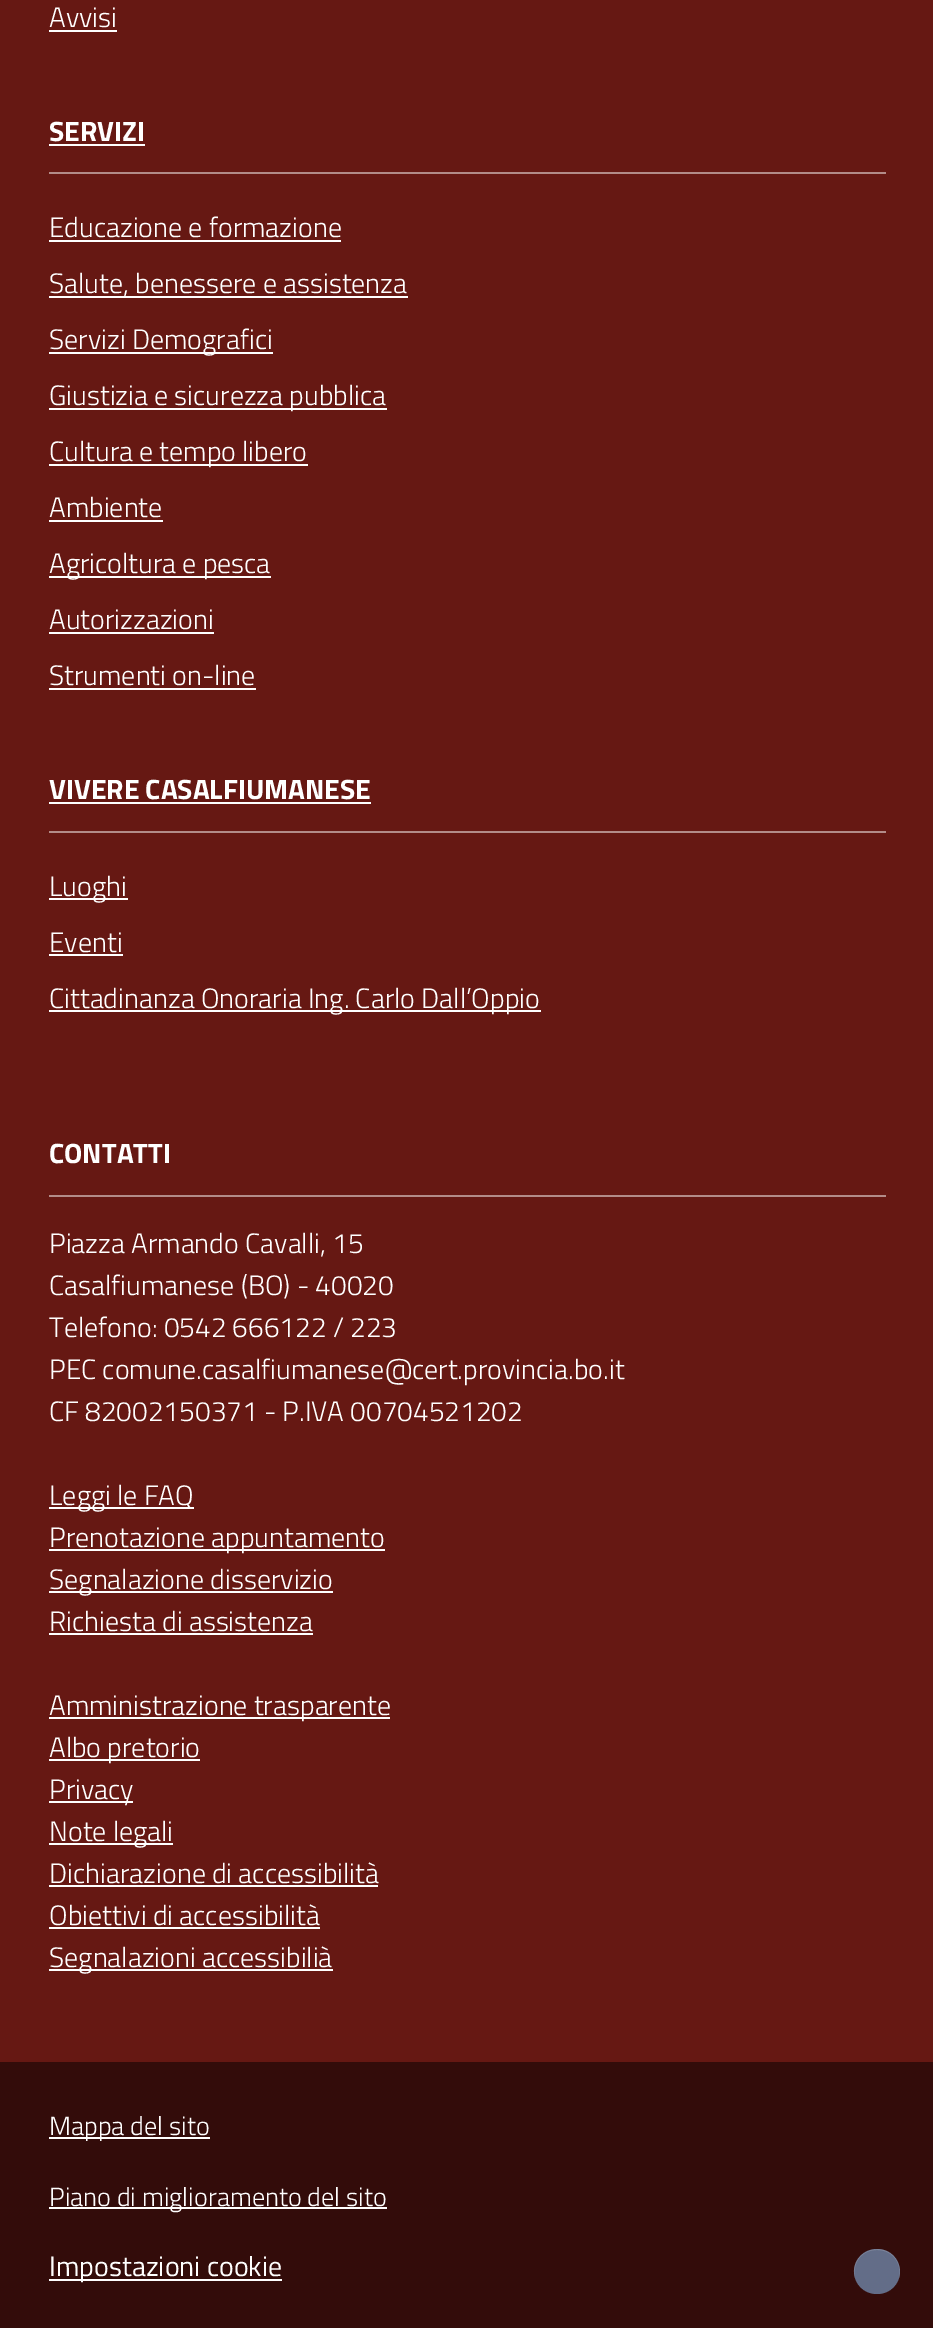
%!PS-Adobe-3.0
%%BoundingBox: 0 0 933 2328
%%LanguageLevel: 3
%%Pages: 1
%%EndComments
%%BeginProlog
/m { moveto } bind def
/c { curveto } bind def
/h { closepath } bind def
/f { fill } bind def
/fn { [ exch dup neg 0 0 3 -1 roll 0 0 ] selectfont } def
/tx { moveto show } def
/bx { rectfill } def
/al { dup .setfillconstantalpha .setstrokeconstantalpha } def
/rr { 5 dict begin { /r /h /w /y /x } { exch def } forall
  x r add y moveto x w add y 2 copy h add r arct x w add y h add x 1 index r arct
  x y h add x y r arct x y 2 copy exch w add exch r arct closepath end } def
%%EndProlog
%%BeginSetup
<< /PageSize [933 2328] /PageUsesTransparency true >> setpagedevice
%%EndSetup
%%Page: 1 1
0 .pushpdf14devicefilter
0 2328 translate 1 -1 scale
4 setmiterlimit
0.4 0.094 0.075 setrgbcolor
0 0 933 2328 bx
/TitilliumWeb-Light 28 fn
1 setgray
(Avvisi) 49 27 tx
49 30 68 2 bx
0.702 0.549 0.537 setrgbcolor
49 172 837 2 bx
/TitilliumWeb-Bold 28 fn
1 setgray
(SERVIZI) 49 141 tx
49 144 96 2 bx
/TitilliumWeb-Light 28 fn
(Educazione e formazione) 49 237 tx
49 240 292 2 bx
49 296 359 2 bx
(Salute, benessere e assistenza) 49 293 tx
49 352 224 2 bx
(Servizi Demografici) 49 349 tx
49 408 338 2 bx
(Giustizia e sicurezza pubblica) 49 405 tx
49 464 259 2 bx
(Cultura e tempo libero) 49 461 tx
(Ambiente) 49 517 tx
49 520 114 2 bx
49 576 222 2 bx
(Agricoltura e pesca) 49 573 tx
(Autorizzazioni) 49 629 tx
49 632 165 2 bx
(Strumenti on-line) 49 685 tx
49 688 207 2 bx
0.702 0.549 0.537 setrgbcolor
49 831 837 2 bx
/TitilliumWeb-Bold 28 fn
1 setgray
(VIVERE CASALFIUMANESE) 49 799 tx
49 802 322 2 bx
49 898 79 2 bx
/TitilliumWeb-Light 28 fn
(Luoghi) 49 896 tx
(Eventi) 49 952 tx
49 954 74 2 bx
49 1010 492 2 bx
(Cittadinanza Onoraria Ing. Carlo Dall’Oppio) 49 1008 tx
0.702 0.549 0.537 setrgbcolor
49 1195 837 2 bx
/TitilliumWeb-Bold 28 fn
1 setgray
(CONTATTI) 49 1163 tx
/TitilliumWeb-Light 28 fn
(Piazza Armando Cavalli, 15) 49 1253 tx
(Casalfiumanese \(BO\) - 40020) 49 1295 tx
(Telefono: 0542 666122 / 223) 49 1337 tx
(PEC comune.casalfiumanese@cert.provincia.bo.it) 49 1379 tx
(CF 82002150371 - P.IVA 00704521202) 49 1421 tx
49 1507 145 2 bx
(Leggi le FAQ) 49 1505 tx
49 1549 336 2 bx
(Prenotazione appuntamento) 49 1547 tx
49 1591 284 2 bx
(Segnalazione disservizio) 49 1589 tx
(Richiesta di assistenza) 49 1631 tx
49 1633 264 2 bx
49 1717 341 2 bx
(Amministrazione trasparente) 49 1715 tx
49 1759 151 2 bx
(Albo pretorio) 49 1757 tx
49 1801 84 2 bx
(Privacy) 49 1799 tx
49 1843 124 2 bx
(Note legali) 49 1841 tx
(Dichiarazione di accessibilità) 49 1883 tx
49 1885 329 2 bx
(Obiettivi di accessibilità) 49 1925 tx
49 1927 271 2 bx
49 1969 284 2 bx
(Segnalazioni accessibilià) 49 1967 tx
0.2 0.047 0.039 setrgbcolor
0 2062 933 266 bx
1 setgray
49 2137 161 2 bx
/TitilliumWeb-Light 26.25 fn
(Mappa del sito) 49 2135 tx
49 2207 338 2 bx
(Piano di miglioramento del sito) 49 2206 tx
49 2279 233 2 bx
/TitilliumWeb-Regular 28 fn
(Impostazioni cookie) 49 2276 tx
0.388 0.427 0.533 setrgbcolor
854 2249 46 45 22.5 rr f
0.15 al
1 setgray
877 2250 m 894 2250 902 2265 899 2278 c 901 2273 900 2268 898 2263 c 887 2237 847 2251 855 2278 c 852 2265 860 2250 877 2250 c h f
.poppdf14devicefilter showpage
%%EOF
